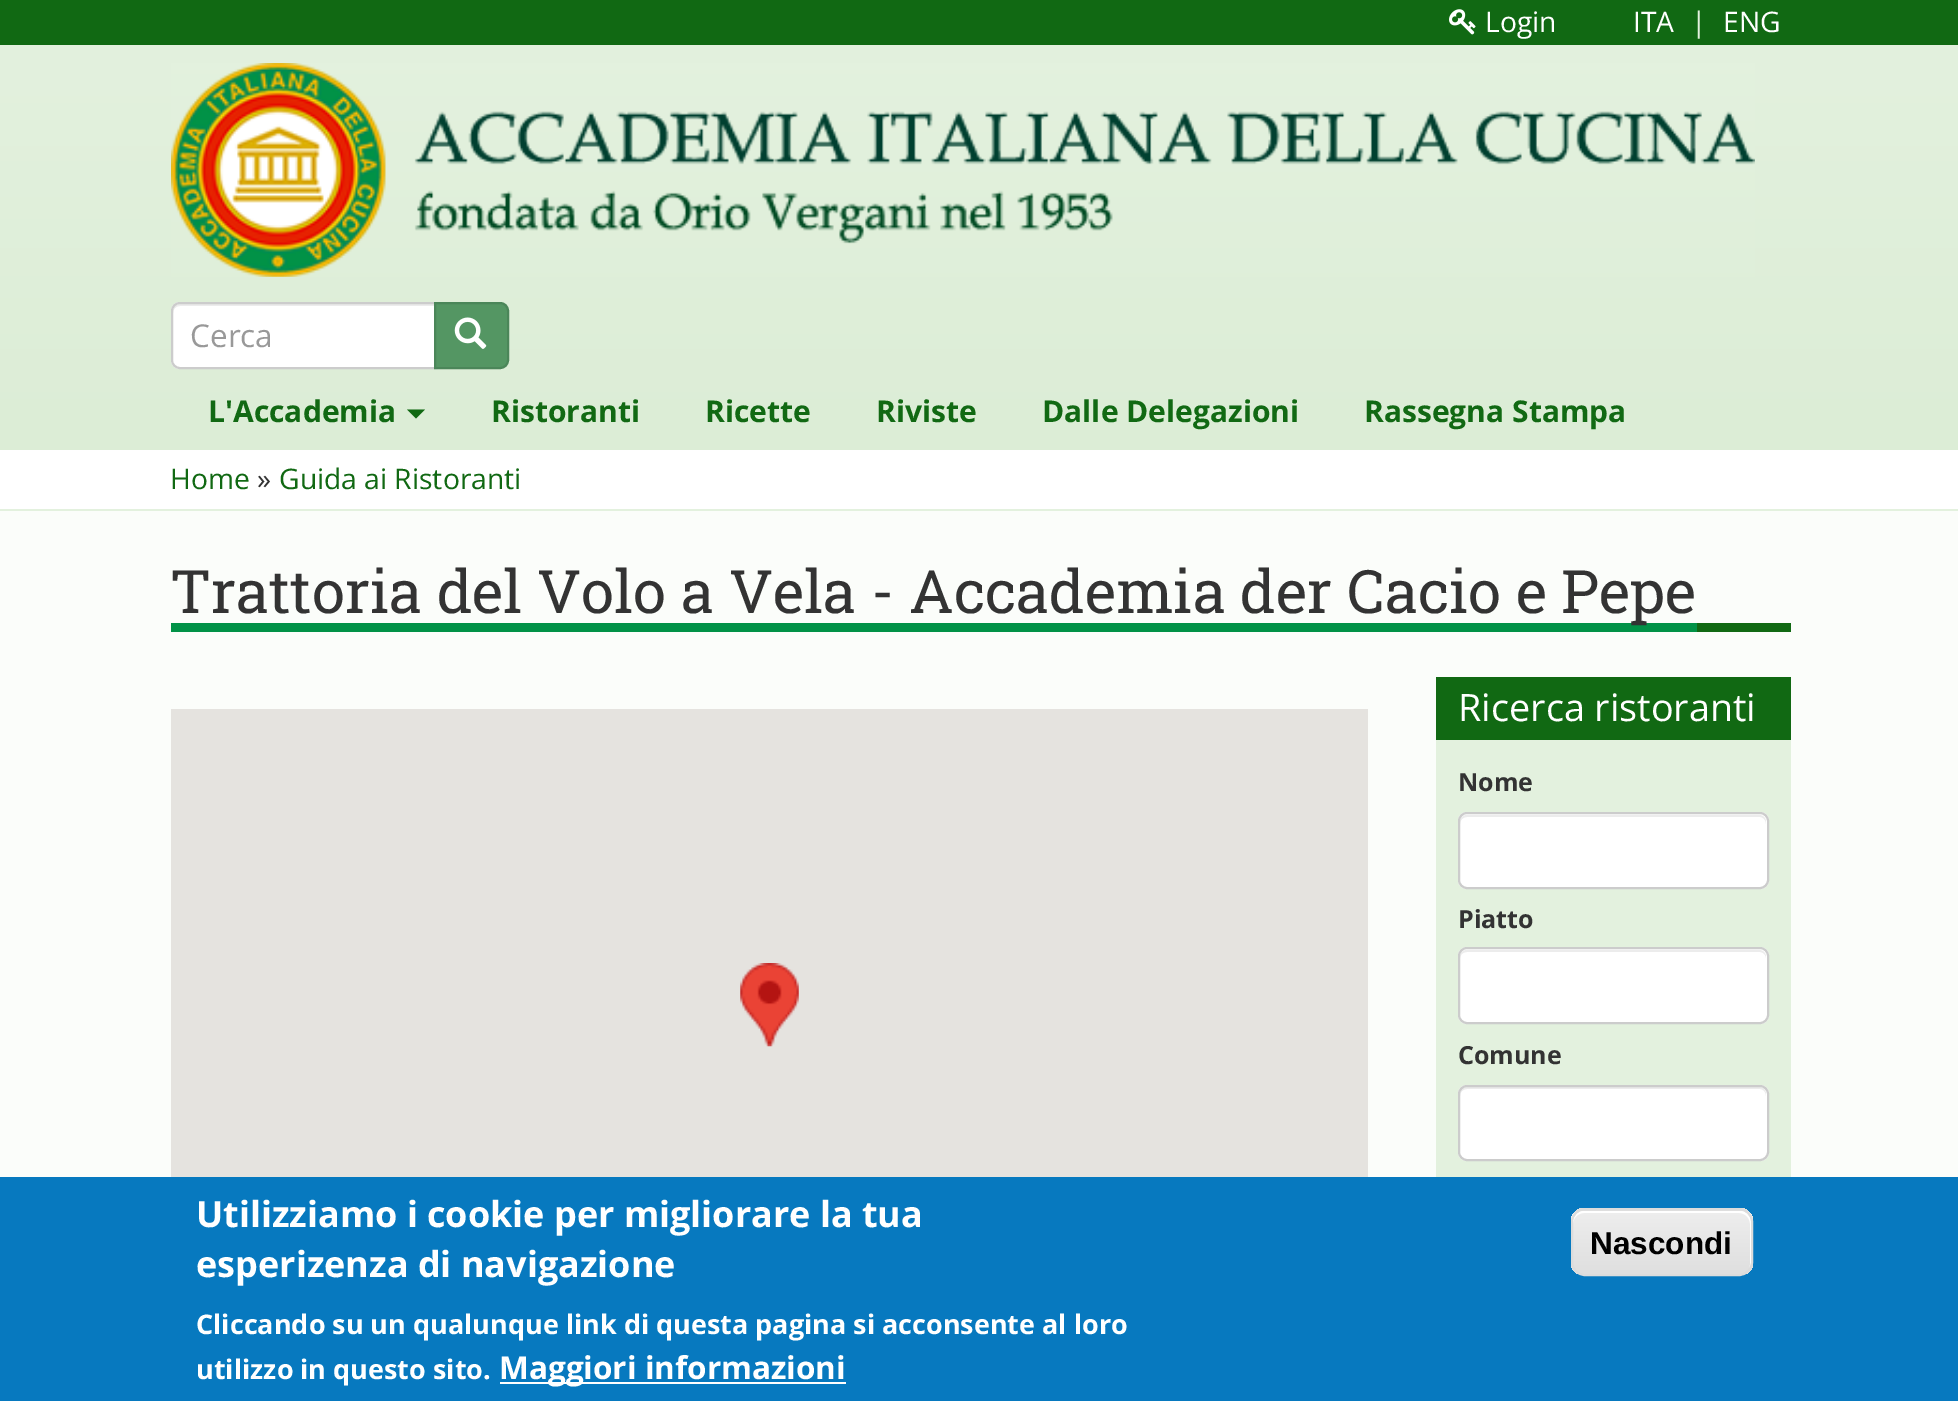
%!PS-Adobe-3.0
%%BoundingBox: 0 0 1958 1401
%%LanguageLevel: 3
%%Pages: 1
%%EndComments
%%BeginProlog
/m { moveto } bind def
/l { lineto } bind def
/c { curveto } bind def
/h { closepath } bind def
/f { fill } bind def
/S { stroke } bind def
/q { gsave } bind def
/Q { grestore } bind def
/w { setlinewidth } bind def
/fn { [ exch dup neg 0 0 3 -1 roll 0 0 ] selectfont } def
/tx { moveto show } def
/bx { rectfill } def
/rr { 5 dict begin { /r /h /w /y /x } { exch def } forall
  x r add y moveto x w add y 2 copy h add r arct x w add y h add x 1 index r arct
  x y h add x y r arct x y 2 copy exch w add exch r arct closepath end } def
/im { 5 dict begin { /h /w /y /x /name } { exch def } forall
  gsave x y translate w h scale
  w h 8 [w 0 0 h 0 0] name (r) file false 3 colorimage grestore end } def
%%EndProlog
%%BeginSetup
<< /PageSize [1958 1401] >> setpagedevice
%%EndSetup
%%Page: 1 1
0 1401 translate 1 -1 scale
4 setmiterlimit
0.984 0.992 0.98 setrgbcolor
0 0 1958 1401 bx
0.067 0.412 0.075 setrgbcolor
0 0 1958 45 bx
(image0.raw) 1449 9 27 26 im
/OpenSans-Regular 28.25 fn
1 setgray
(Login) 1485 32 tx
(ITA) 1633 32 tx
0.89 0.945 0.871 setrgbcolor
(|) 1691 32 tx
1 setgray
(ENG) 1723 32 tx
q 0 45 m 1958 45 l 1958 450 l 0 450 l h clip newpath
<< /ShadingType 2 /ColorSpace /DeviceRGB /Coords [980 45 980 450] /Extend [true true] /Function << /FunctionType 2 /Domain [0 1] /C0 [0.89 0.945 0.871] /C1 [0.863 0.929 0.839] /N 1 >> >> shfill Q
(image1.raw) 171 63 1584 214 im
180 302 m 437 302 l 437 369 l 180 369 l 175 369 171 365 171 360 c 171 311 l 171 306 175 302 180 302 c h f
0.925 setgray
180 306 m 434 306 l 434 304 l 180 304 l 176 304 173 307 173 311 c 173 313 l 173 309 176 306 180 306 c h f
0.8 setgray
2 w
180 303 m 436 303 l 436 368 l 180 368 l 175.5 368 172 364.5 172 360 c 172 311 l 172 306.5 175.5 303 180 303 c h S
/OpenSans-Regular 31.5 fn
0.6 setgray
(Cerca) 190 347 tx
0.329 0.588 0.388 setrgbcolor
435 303 m 500 303 l 504.5 303 508 306.5 508 311 c 508 360 l 508 364.5 504.5 368 500 368 c 435 368 l h q f Q
0.294 0.525 0.349 setrgbcolor
S
(image2.raw) 454 317 33 32 im
/OpenSans-Bold 30 fn
0.067 0.412 0.075 setrgbcolor
(L'Accademia) 208 422 tx
407 409.5 m 425 409.5 l 416 418.5 l h f
(Ristoranti) 491 422 tx
(Ricette) 705 422 tx
(Riviste) 876 422 tx
(Dalle Delegazioni) 1042 422 tx
(Rassegna Stampa) 1364 422 tx
1 setgray
0 450 1958 59 bx
0.89 0.945 0.871 setrgbcolor
0 509 1958 2 bx
/OpenSans-Regular 28.25 fn
0.067 0.412 0.075 setrgbcolor
(Home) 170 489 tx
0.2 setgray
(») 257 489 tx
0.067 0.412 0.075 setrgbcolor
(Guida ai Ristoranti) 279 489 tx
1697 623 94 9 bx
0.004 0.573 0.278 setrgbcolor
171 623 1526 9 bx
/RobotoSlab-Regular 59.85 fn
0.2 setgray
(Trattoria del Volo a Vela - Accademia der Cacio e Pepe) 170 613 tx
0.898 0.89 0.875 setrgbcolor
171 709 1197 468 bx
(image3.raw) 740 963 59 84 im
0.067 0.412 0.075 setrgbcolor
1436 677 355 63 bx
/OpenSans-Regular 37.75 fn
1 setgray
(Ricerca ristoranti) 1458 721 tx
0.89 0.945 0.871 setrgbcolor
1436 740 355 437 bx
/OpenSans-Bold 25 fn
0.2 setgray
(Nome) 1458 791 tx
1 setgray
1458 812 311 77 9 rr f
0.925 setgray
1467 817 m 1760 817 l 1763 817 1766 820 1766 824 c 1766 822 l 1766 818 1763 815 1759 815 c 1467 815 l 1463 815 1460 818 1460 822 c 1460 824 l 1460 820 1463 817 1467 817 c h f
0.8 setgray
1459 813 309 75 8 rr S
0.2 setgray
(Piatto) 1458 928 tx
1 setgray
1458 947 311 77 9 rr f
0.925 setgray
1467 952 m 1760 952 l 1763 952 1766 955 1766 958 c 1766 957 l 1766 953 1763 950 1759 950 c 1467 950 l 1463 950 1460 953 1460 957 c 1460 958 l 1460 955 1463 952 1467 952 c h f
0.8 setgray
1459 948 309 75 8 rr S
0.2 setgray
(Comune) 1458 1064 tx
1 setgray
1458 1085 311 76 9 rr f
0.925 setgray
1467 1089 m 1760 1089 l 1763 1089 1766 1092 1766 1096 c 1766 1094 l 1766 1090 1763 1087 1759 1087 c 1467 1087 l 1463 1087 1460 1090 1460 1094 c 1460 1096 l 1460 1092 1463 1089 1467 1089 c h f
0.8 setgray
1459 1086 309 74 8 rr S
0.027 0.475 0.749 setrgbcolor
0 1177 1958 224 bx
/OpenSans-Bold 36 fn
1 setgray
(Utilizziamo i cookie per migliorare la tua) 196 1227 tx
(esperizenza di navigazione) 196 1277 tx
/OpenSans-Bold 27 fn
(Cliccando su un qualunque link di questa pagina si acconsente al loro) 196 1334 tx
(utilizzo in questo sito.) 196 1379 tx
500 1382 346 2 bx
/OpenSans-Bold 31.5 fn
(Maggiori informazioni) 499 1379 tx
q
1571 1208 182 68 14 rr clip newpath
q 1571 1208 m 1753 1208 l 1753 1211 l 1571 1211 l h clip newpath
<< /ShadingType 2 /ColorSpace /DeviceRGB /Coords [1662 1148 1662 1211] /Extend [true true] /Function << /FunctionType 3 /Domain [0 1] /Functions [<< /FunctionType 2 /Domain [0 1] /C0 [0.929 0.929 0.929] /C1 [0.929 0.929 0.929] /N 1 >> << /FunctionType 2 /Domain [0 1] /C0 [0.929 0.929 0.929] /C1 [0.875 0.875 0.875] /N 1 >>] /Bounds [0.05] /Encode [0 1 0 1] >> >> shfill Q
q 1571 1211 m 1753 1211 l 1753 1274 l 1571 1274 l h clip newpath
<< /ShadingType 2 /ColorSpace /DeviceRGB /Coords [1662 1211 1662 1274] /Extend [true true] /Function << /FunctionType 3 /Domain [0 1] /Functions [<< /FunctionType 2 /Domain [0 1] /C0 [0.929 0.929 0.929] /C1 [0.929 0.929 0.929] /N 1 >> << /FunctionType 2 /Domain [0 1] /C0 [0.929 0.929 0.929] /C1 [0.875 0.875 0.875] /N 1 >>] /Bounds [0.05] /Encode [0 1 0 1] >> >> shfill Q
Q
1584 1213 m 1739 1213 l 1745 1213 1750 1218 1750 1224 c 1750 1264 l 1750 1266 1750 1268 1749 1270 c 1750 1268 1751 1265 1751 1263 c 1751 1222 l 1751 1216 1746 1211 1740 1211 c 1584 1211 l 1578 1211 1573 1216 1573 1222 c 1573 1224 l 1573 1218 1578 1213 1584 1213 c h f
0.863 setgray
1572 1209 180 66 13 rr S
/LiberationSans-Bold 31.5 fn
0 setgray
(Nascondi) 1590 1254 tx
showpage
%%EOF
